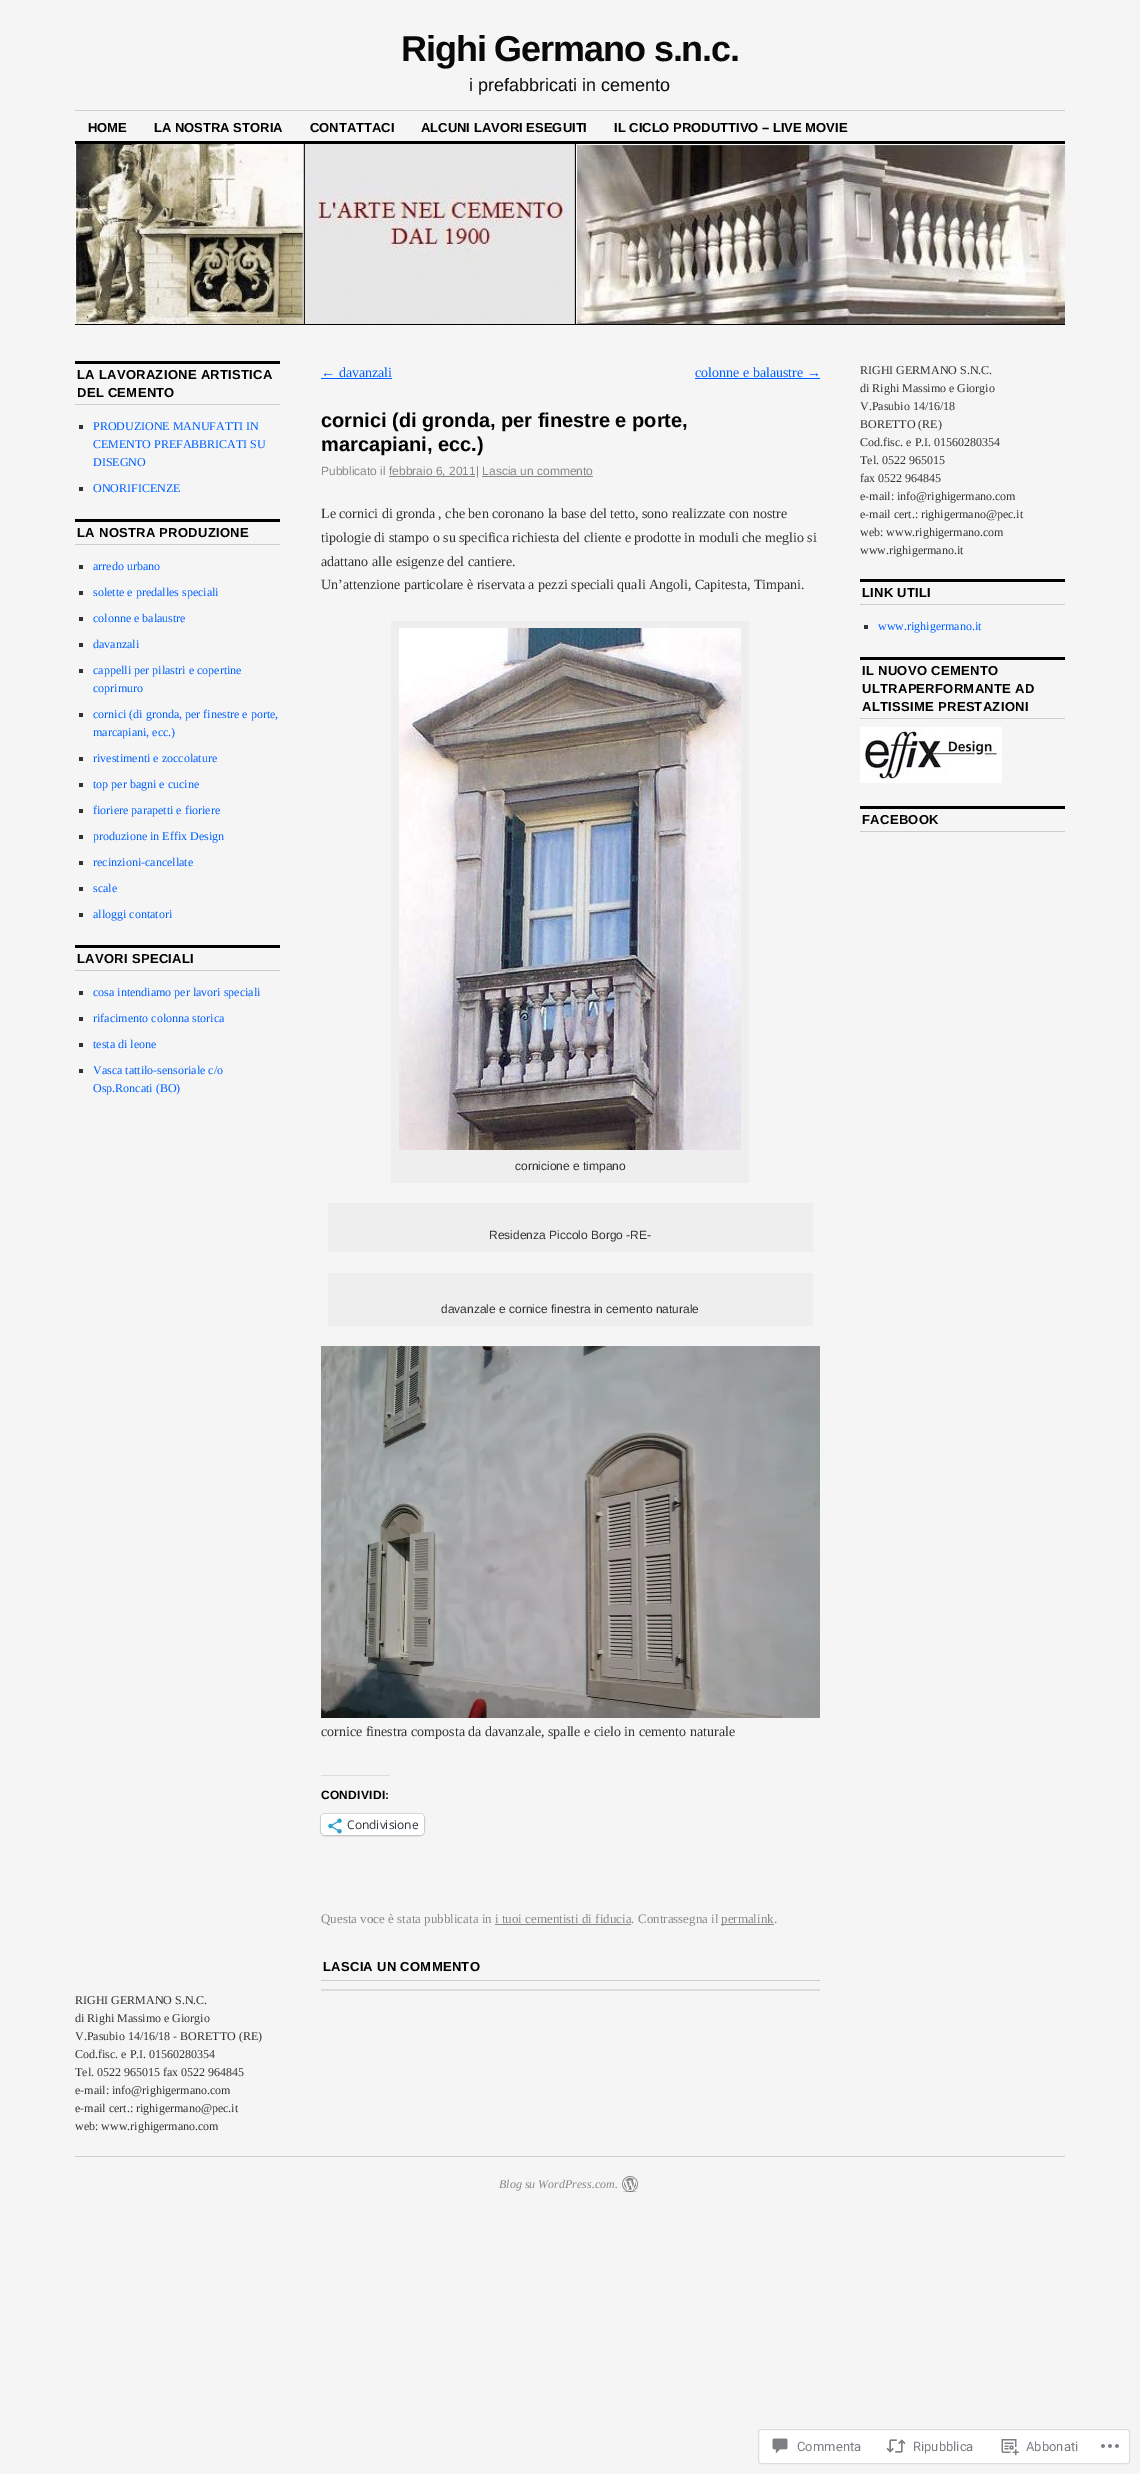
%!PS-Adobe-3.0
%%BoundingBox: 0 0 1140 2474
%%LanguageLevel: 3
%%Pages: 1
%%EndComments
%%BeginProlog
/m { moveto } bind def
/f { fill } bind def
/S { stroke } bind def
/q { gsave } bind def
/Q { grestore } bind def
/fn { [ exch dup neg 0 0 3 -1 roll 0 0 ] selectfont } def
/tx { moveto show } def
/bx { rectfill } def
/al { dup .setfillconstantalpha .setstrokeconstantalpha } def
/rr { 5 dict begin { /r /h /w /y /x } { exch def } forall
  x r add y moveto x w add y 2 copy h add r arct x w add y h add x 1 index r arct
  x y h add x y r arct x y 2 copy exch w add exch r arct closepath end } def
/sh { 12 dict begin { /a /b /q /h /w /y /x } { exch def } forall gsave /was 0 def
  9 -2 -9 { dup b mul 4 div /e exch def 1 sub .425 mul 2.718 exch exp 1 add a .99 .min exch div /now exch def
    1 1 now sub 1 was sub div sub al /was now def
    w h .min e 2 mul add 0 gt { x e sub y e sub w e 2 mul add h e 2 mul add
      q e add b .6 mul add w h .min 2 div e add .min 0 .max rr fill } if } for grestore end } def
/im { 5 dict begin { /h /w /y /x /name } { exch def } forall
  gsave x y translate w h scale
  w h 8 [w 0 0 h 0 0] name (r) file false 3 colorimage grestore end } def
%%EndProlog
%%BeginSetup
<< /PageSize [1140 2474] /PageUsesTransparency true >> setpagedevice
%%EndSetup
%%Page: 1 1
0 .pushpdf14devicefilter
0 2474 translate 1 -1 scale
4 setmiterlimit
0.961 0.961 0.965 setrgbcolor
0 0 1140 2474 bx
/LiberationSans-Bold 36 fn
0.039 0.035 0.035 setrgbcolor
401 61 m -1.1 0 (Righi Germano s.n.c.) ashow
/LiberationSans-Regular 18 fn
(i prefabbricati in cemento) 469 91 tx
0.8 setgray
75 110 990 1 bx
/LiberationSans-Bold 13 fn
0 setgray
(HOME) 88 132 tx
(LA NOSTRA STORIA) 154 132 tx
(CONTATTACI) 310 132 tx
(ALCUNI LAVORI ESEGUITI) 421 132 tx
(IL CICLO PRODUTTIVO – LIVE MOVIE) 614 132 tx
75 141 990 3 bx
(image0.raw) 75 144 990 180 im
75 324 990 1 bx
75 361 205 3 bx
0.8 setgray
75 404 205 1 bx
0 setgray
77 379 m 0.3 0 (LA LAVORAZIONE ARTISTICA) ashow
77 397 m 0.3 0 (DEL CEMENTO) ashow
0.2 setgray
79 425 4 4 bx
/LiberationSerif-Regular 12 fn
0 0.376 1 setrgbcolor
(PRODUZIONE MANUFATTI IN) 93 430 tx
(CEMENTO PREFABBRICATI SU) 93 448 tx
(DISEGNO) 93 466 tx
0.2 setgray
79 487 4 4 bx
0 0.376 1 setrgbcolor
(ONORIFICENZE) 93 492 tx
0 setgray
75 519 205 3 bx
0.8 setgray
75 544 205 1 bx
/LiberationSans-Bold 13 fn
0 setgray
77 537 m 0.3 0 (LA NOSTRA PRODUZIONE) ashow
0.2 setgray
79 565 4 4 bx
/LiberationSerif-Regular 12 fn
0 0.376 1 setrgbcolor
(arredo urbano) 93 570 tx
0.2 setgray
79 591 4 4 bx
0 0.376 1 setrgbcolor
(solette e predalles speciali) 93 596 tx
0.2 setgray
79 617 4 4 bx
0 0.376 1 setrgbcolor
(colonne e balaustre) 93 622 tx
0.2 setgray
79 643 4 4 bx
0 0.376 1 setrgbcolor
(davanzali) 93 648 tx
0.2 setgray
79 669 4 4 bx
0 0.376 1 setrgbcolor
(cappelli per pilastri e copertine) 93 674 tx
(coprimuro) 93 692 tx
0.2 setgray
79 713 4 4 bx
0 0.376 1 setrgbcolor
(cornici \(di gronda, per finestre e porte,) 93 718 tx
(marcapiani, ecc.\)) 93 736 tx
0.2 setgray
79 757 4 4 bx
0 0.376 1 setrgbcolor
(rivestimenti e zoccolature) 93 762 tx
0.2 setgray
79 783 4 4 bx
0 0.376 1 setrgbcolor
(top per bagni e cucine) 93 788 tx
0.2 setgray
79 809 4 4 bx
0 0.376 1 setrgbcolor
(fioriere parapetti e fioriere) 93 814 tx
0.2 setgray
79 835 4 4 bx
0 0.376 1 setrgbcolor
(produzione in Effix Design) 93 840 tx
0.2 setgray
79 861 4 4 bx
0 0.376 1 setrgbcolor
(recinzioni-cancellate) 93 866 tx
0.2 setgray
79 887 4 4 bx
0 0.376 1 setrgbcolor
(scale) 93 892 tx
0.2 setgray
79 913 4 4 bx
0 0.376 1 setrgbcolor
(alloggi contatori) 93 918 tx
0 setgray
75 945 205 3 bx
0.8 setgray
75 970 205 1 bx
/LiberationSans-Bold 13 fn
0 setgray
77 963 m 0.3 0 (LAVORI SPECIALI) ashow
0.2 setgray
79 991 4 4 bx
/LiberationSerif-Regular 12 fn
0 0.376 1 setrgbcolor
(cosa intendiamo per lavori speciali) 93 996 tx
0.2 setgray
79 1017 4 4 bx
0 0.376 1 setrgbcolor
(rifacimento colonna storica) 93 1022 tx
0.2 setgray
79 1043 4 4 bx
0 0.376 1 setrgbcolor
(testa di leone) 93 1048 tx
0.2 setgray
79 1069 4 4 bx
0 0.376 1 setrgbcolor
(Vasca tattilo-sensoriale c/o) 93 1074 tx
(Osp.Roncati \(BO\)) 93 1092 tx
/LiberationSerif-Regular 14 fn
(← davanzali) 321 377 tx
321 378 71 1 bx
(colonne e balaustre →) 695 377 tx
695 378 125 1 bx
/LiberationSans-Bold 20 fn
0 setgray
(cornici \(di gronda, per finestre e porte,) 321 427 tx
(marcapiani, ecc.\)) 321 451 tx
/LiberationSans-Regular 12 fn
0.533 setgray
(Pubblicato il) 321 475 tx
389 476 86 1 bx
(febbraio 6, 2011| Lascia un commento) 389 475 tx
482 476 111 1 bx
/LiberationSerif-Regular 14 fn
0.2 setgray
(Le cornici di gronda , che ben coronano la base del tetto, sono realizzate con nostre) 321 518 tx
(tipologie di stampo o su specifica richiesta del cliente e prodotte in moduli che meglio si) 321 542 tx
(adattano alle esigenze del cantiere.) 321 566 tx
(Un’attenzione particolare è riservata a pezzi speciali quali Angoli, Capitesta, Timpani.) 321 589 tx
0.933 setgray
391 621 358 562 bx
(image1.raw) 399 628 342 522 im
/LiberationSans-Regular 12 fn
0.2 setgray
(cornicione e timpano) 515 1170 tx
0.933 setgray
328 1203 485 49 bx
0.2 setgray
(Residenza Piccolo Borgo -RE-) 489 1239 tx
0.933 setgray
328 1273 485 53 bx
0.2 setgray
(davanzale e cornice finestra in cemento naturale) 441 1313 tx
(image2.raw) 321 1346 499 372 im
/LiberationSerif-Regular 14 fn
(cornice finestra composta da davanzale, spalle e cielo in cemento naturale) 321 1736 tx
0.863 0.863 0.871 setrgbcolor
321 1775 69 1 bx
/LiberationSans-Bold 12 fn
0 setgray
321 1799 m 0.25 0 (CONDIVIDI:) ashow
0.847 setgray
320.5 1813.5 104 22 4.5 rr S
0 setgray
321 1815 103 21 4 1 0.12 sh
1 setgray
321 1814 103 21 4 rr f
(image3.raw) 328 1818 14 16 im
/OpenSans-Regular 12 fn
0.173 0.2 0.22 setrgbcolor
(Condivisione) 347 1829 tx
/LiberationSerif-Regular 13 fn
0.533 setgray
(Questa voce è stata pubblicata in i tuoi cementisti di fiducia. Contrassegna il) 321 1923 tx
721 1924 53 1 bx
(permalink.) 721 1923 tx
495 1924 136 1 bx
0.8 setgray
321 1980 499 1 bx
/LiberationSans-Bold 13 fn
0 setgray
323 1971 m 0.3 0 (LASCIA UN COMMENTO) ashow
0.863 0.863 0.871 setrgbcolor
321 1989 499 2 bx
/LiberationSerif-Regular 12 fn
0.2 setgray
(RIGHI GERMANO S.N.C.) 860 374 tx
(di Righi Massimo e Giorgio) 860 392 tx
(V.Pasubio 14/16/18) 860 410 tx
(BORETTO \(RE\)) 860 428 tx
(Cod.fisc. e P.I. 01560280354) 860 446 tx
(Tel. 0522 965015) 860 464 tx
(fax 0522 964845) 860 482 tx
(e-mail: info@righigermano.com) 860 500 tx
(e-mail cert.: righigermano@pec.it) 860 518 tx
(web: www.righigermano.com) 860 536 tx
(www.righigermano.it) 860 554 tx
0 setgray
860 579 205 3 bx
0.8 setgray
860 604 205 1 bx
/LiberationSans-Bold 13 fn
0 setgray
862 597 m 0.3 0 (LINK UTILI) ashow
0.2 setgray
864 625 4 4 bx
/LiberationSerif-Regular 12 fn
0 0.376 1 setrgbcolor
(www.righigermano.it) 878 630 tx
0 setgray
860 657 205 3 bx
0.8 setgray
860 718 205 1 bx
/LiberationSans-Bold 13 fn
0 setgray
862 675 m 0.3 0 (IL NUOVO CEMENTO) ashow
862 693 m 0.3 0 (ULTRAPERFORMANTE AD) ashow
862 711 m 0.3 0 (ALTISSIME PRESTAZIONI) ashow
(image4.raw) 860 727 142 56 im
860 806 205 3 bx
0.8 setgray
860 831 205 1 bx
0 setgray
862 824 m 0.3 0 (FACEBOOK) ashow
/LiberationSerif-Regular 12 fn
0.2 setgray
(RIGHI GERMANO S.N.C.) 75 2004 tx
(di Righi Massimo e Giorgio) 75 2022 tx
(V.Pasubio 14/16/18 - BORETTO \(RE\)) 75 2040 tx
(Cod.fisc. e P.I. 01560280354) 75 2058 tx
(Tel. 0522 965015 fax 0522 964845) 75 2076 tx
(e-mail: info@righigermano.com) 75 2094 tx
(e-mail cert.: righigermano@pec.it) 75 2112 tx
(web: www.righigermano.com) 75 2130 tx
0.8 setgray
75 2156 990 1 bx
(image5.raw) 622 2176 16 16 im
/LiberationSerif-Italic 12 fn
0.533 setgray
(Blog su WordPress.com.) 499 2188 tx
1 setgray
758.5 2429.5 371 34 2.5 rr q f Q
0.867 0.867 0.871 setrgbcolor
S
(image6.raw) 772 2438 16 16 im
/Roboto-Regular 13 fn
0.482 0.494 0.518 setrgbcolor
(Commenta) 797 2451 tx
(image7.raw) 886 2439 20 14 im
(Ripubblica) 913 2451 tx
(image8.raw) 1001 2439 18 17 im
(Abbonati) 1026 2451 tx
(image9.raw) 1101 2444 18 4 im
.poppdf14devicefilter showpage
%%EOF
